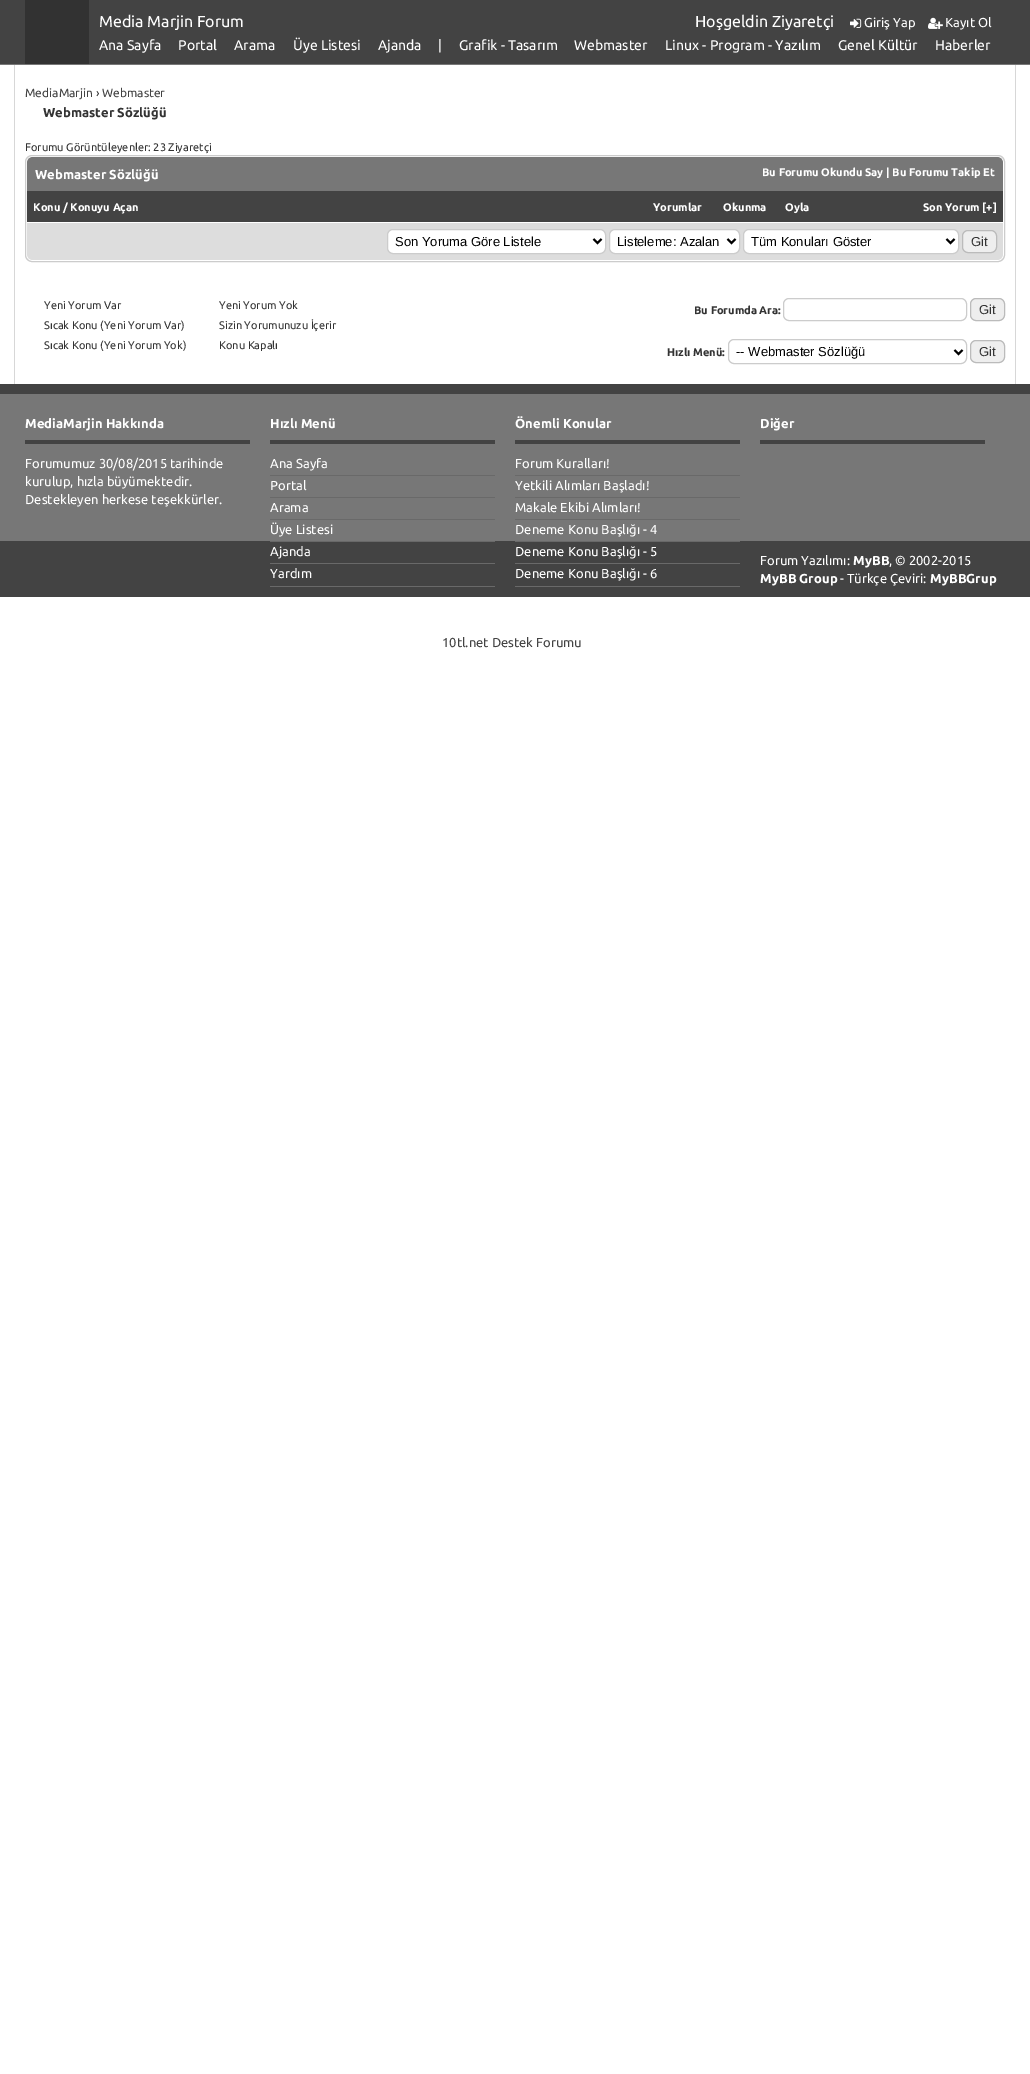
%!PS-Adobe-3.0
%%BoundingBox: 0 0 1030 2074
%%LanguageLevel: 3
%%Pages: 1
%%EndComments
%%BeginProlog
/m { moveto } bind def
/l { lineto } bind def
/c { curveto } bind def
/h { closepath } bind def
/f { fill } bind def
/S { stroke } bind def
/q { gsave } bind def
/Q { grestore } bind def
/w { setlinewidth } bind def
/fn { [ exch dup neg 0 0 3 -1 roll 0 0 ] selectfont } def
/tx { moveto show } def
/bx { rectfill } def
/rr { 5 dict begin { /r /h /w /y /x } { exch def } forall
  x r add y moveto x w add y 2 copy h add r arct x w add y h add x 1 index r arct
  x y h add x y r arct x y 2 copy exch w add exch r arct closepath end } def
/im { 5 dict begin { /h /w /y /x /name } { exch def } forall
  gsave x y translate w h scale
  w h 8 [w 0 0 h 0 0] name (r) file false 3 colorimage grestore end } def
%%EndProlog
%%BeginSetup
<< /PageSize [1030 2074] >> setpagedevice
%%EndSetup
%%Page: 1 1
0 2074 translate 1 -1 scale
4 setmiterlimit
1 setgray
0 0 1030 2074 bx
0.263 setgray
0 0 1030 64 bx
0.467 setgray
0 64 1030 1 bx
0.196 setgray
25 0 64 64 bx
/Ubuntu-Regular 16 fn
1 setgray
(Media Marjin Forum) 99 27 tx
(Hoşgeldin Ziyaretçi) 695 27 tx
(image0.raw) 850 18 12 10 im
/Ubuntu-Regular 13 fn
(Giriş Yap) 864 27 tx
(image1.raw) 928 17 15 12 im
(Kayıt Ol) 945 27 tx
/Ubuntu-Regular 14 fn
(Ana Sayfa) 99 50 tx
(Portal) 178 50 tx
(Arama) 234 50 tx
(Üye Listesi) 293 50 tx
(Ajanda) 378 50 tx
(|) 438 50 tx
(Grafik - Tasarım) 459 50 tx
(Webmaster) 574 50 tx
(Linux - Program - Yazılım) 665 50 tx
(Genel Kültür) 838 50 tx
(Haberler) 935 50 tx
0.843 setgray
1015 65 1 319 bx
14 65 1 319 bx
/Ubuntu-Regular 12 fn
0.263 setgray
(MediaMarjin) 25 97 tx
0.2 setgray
(›) 96 97 tx
0.263 setgray
(Webmaster) 102 97 tx
/Ubuntu-Bold 13 fn
0.2 setgray
(Webmaster Sözlüğü) 43 117 tx
/Ubuntu-Regular 11 fn
(Forumu Görüntüleyenler: 23 Ziyaretçi) 25 151 tx
0.8 setgray
25.5 155.5 979 106 6.5 rr S
0.467 setgray
33 157 m 997 157 l 1000.5 157 1003 159.5 1003 163 c 1003 194 l 27 194 l 27 163 l 27 159.5 29.5 157 33 157 c h f
0.263 setgray
27 191 976 3 bx
/Ubuntu-Bold 13 fn
1 setgray
(Webmaster Sözlüğü) 35 179 tx
/Ubuntu-Bold 11 fn
(Bu Forumu Okundu Say | Bu Forumu Takip Et) 762 176 tx
0.263 setgray
27 194 976 28 bx
1 setgray
(Konu / Konuyu Açan) 33 211 tx
(Yorumlar) 653 211 tx
(Okunma) 723 211 tx
(Oyla) 785 211 tx
(Son Yorum [+]) 923 211 tx
0.867 setgray
27 222 m 1003 222 l 1003 254 l 1003 257.5 1000.5 260 997 260 c 33 260 l 29.5 260 27 257.5 27 254 c h f
1 setgray
27 222 976 1 bx
387.5 229.5 218 24 5.5 rr q f Q
0.8 setgray
S
0 setgray
2 w
593.5 239 m 597.5 243 l 601.5 239 l S
/LiberationSans-Regular 13 fn
(Son Yoruma Göre Listele) 395 246 tx
1 setgray
609.5 229.5 130 24 5.5 rr q f Q
0.8 setgray
1 w
S
0 setgray
2 w
727.5 239 m 731.5 243 l 735.5 239 l S
(Listeleme: Azalan) 617 246 tx
1 setgray
743.5 229.5 215 24 5.5 rr q f Q
0.8 setgray
1 w
S
0 setgray
2 w
946.5 239 m 950.5 243 l 954.5 239 l S
(Tüm Konuları Göster) 751 246 tx
0.933 setgray
962.5 230.5 34 22 5.5 rr q f Q
0.733 setgray
1 w
S
0.2 setgray
(Git) 971 246 tx
/Ubuntu-Regular 11 fn
(Yeni Yorum Var) 44 309 tx
(Sıcak Konu \(Yeni Yorum Var\)) 44 329 tx
(Sıcak Konu \(Yeni Yorum Yok\)) 44 349 tx
(Yeni Yorum Yok) 219 309 tx
(Sizin Yorumunuzu İçerir) 219 329 tx
(Konu Kapalı) 219 349 tx
/Ubuntu-Bold 11 fn
(Bu Forumda Ara:) 694 314 tx
0.8 setgray
783.5 298.5 183 22 5.5 rr S
0.933 setgray
970.5 298.5 34 22 5.5 rr q f Q
0.733 setgray
S
/LiberationSans-Regular 13 fn
0.2 setgray
(Git) 979 314 tx
/Ubuntu-Bold 11 fn
(Hızlı Menü:) 667 356 tx
0.8 setgray
728.5 339.5 238 24 5.5 rr S
0 setgray
2 w
954.5 350 m 958.5 354 l 962.5 350 l S
/LiberationSans-Regular 13 fn
(-- Webmaster Sözlüğü) 736 356 tx
0.933 setgray
970.5 340.5 34 22 5.5 rr q f Q
0.733 setgray
1 w
S
0.2 setgray
(Git) 979 356 tx
0.467 setgray
0 394 1030 147 bx
0.263 setgray
0 384 1030 10 bx
25 440 225 4 bx
/Ubuntu-Bold 13 fn
1 setgray
(MediaMarjin Hakkında) 25 428 tx
/Ubuntu-Regular 13 fn
(Forumumuz 30/08/2015 tarihinde) 25 468 tx
(kurulup, hızla büyümektedir.) 25 486 tx
(Destekleyen herkese teşekkürler.) 25 504 tx
0.263 setgray
270 440 225 4 bx
/Ubuntu-Bold 13 fn
1 setgray
(Hızlı Menü) 270 428 tx
0.412 setgray
270 475 225 1 bx
/Ubuntu-Regular 13 fn
1 setgray
(Ana Sayfa) 270 468 tx
0.412 setgray
270 497 225 1 bx
1 setgray
(Portal) 270 490 tx
0.412 setgray
270 519 225 1 bx
1 setgray
(Arama) 270 512 tx
0.263 setgray
0 541 1030 56 bx
0.412 setgray
270 541 225 1 bx
1 setgray
(Üye Listesi) 270 534 tx
0.412 setgray
270 563 225 1 bx
1 setgray
(Ajanda) 270 556 tx
0.412 setgray
270 586 225 1 bx
1 setgray
(Yardım) 270 578 tx
0.263 setgray
515 440 225 4 bx
/Ubuntu-Bold 13 fn
1 setgray
(Önemli Konular) 515 428 tx
0.412 setgray
515 475 225 1 bx
/Ubuntu-Regular 13 fn
1 setgray
(Forum Kuralları!) 515 468 tx
0.412 setgray
515 497 225 1 bx
1 setgray
(Yetkili Alımları Başladı!) 515 490 tx
0.412 setgray
515 519 225 1 bx
1 setgray
(Makale Ekibi Alımları!) 515 512 tx
0.412 setgray
515 541 225 1 bx
1 setgray
(Deneme Konu Başlığı - 4) 515 534 tx
0.412 setgray
515 563 225 1 bx
1 setgray
(Deneme Konu Başlığı - 5) 515 556 tx
0.412 setgray
515 586 225 1 bx
1 setgray
(Deneme Konu Başlığı - 6) 515 578 tx
0.263 setgray
760 440 225 4 bx
/Ubuntu-Bold 13 fn
1 setgray
(Diğer) 760 428 tx
/Ubuntu-Regular 13 fn
(Forum Yazılımı:) 760 565 tx
/Ubuntu-Bold 13 fn
(MyBB) 853 565 tx
/Ubuntu-Regular 13 fn
(, © 2002-2015) 889 565 tx
/Ubuntu-Bold 13 fn
(MyBB Group) 760 583 tx
/Ubuntu-Regular 13 fn
(- Türkçe Çeviri:) 840 583 tx
/Ubuntu-Bold 13 fn
(MyBBGrup) 930 583 tx
/Ubuntu-Regular 13 fn
0.263 setgray
(10tl.net Destek Forumu) 442 647 tx
showpage
%%EOF
